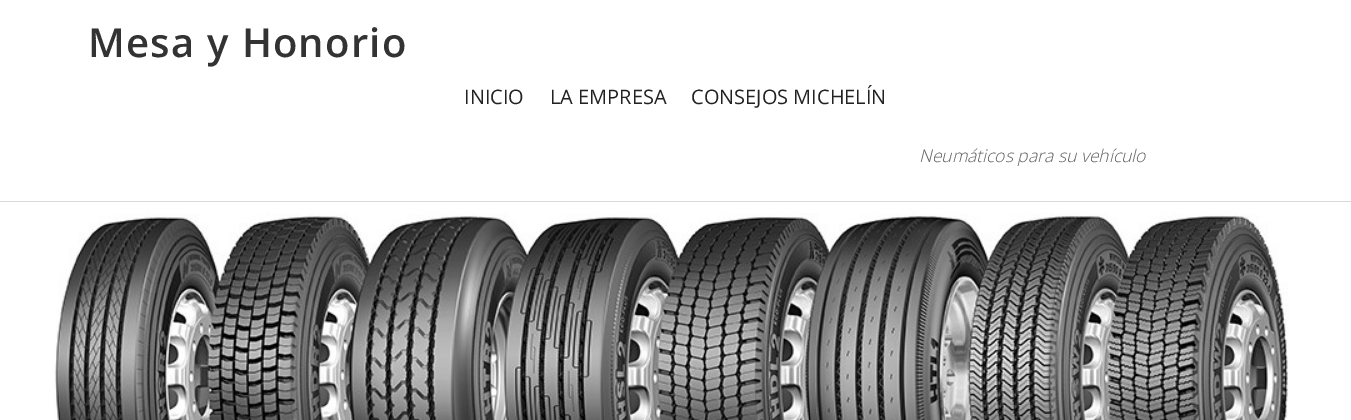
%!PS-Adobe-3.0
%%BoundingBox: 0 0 1351 420
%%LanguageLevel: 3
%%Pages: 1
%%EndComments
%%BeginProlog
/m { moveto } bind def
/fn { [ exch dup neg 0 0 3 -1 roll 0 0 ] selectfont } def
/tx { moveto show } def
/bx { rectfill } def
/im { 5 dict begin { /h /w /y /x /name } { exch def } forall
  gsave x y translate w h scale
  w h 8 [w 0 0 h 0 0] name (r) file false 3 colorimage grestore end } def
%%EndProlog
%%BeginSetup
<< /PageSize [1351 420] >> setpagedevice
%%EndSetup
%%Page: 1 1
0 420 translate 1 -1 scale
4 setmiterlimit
1 setgray
0 0 1351 420 bx
0.851 setgray
0 201 1351 1 bx
/OpenSans-SemiBold 40 fn
0.2 setgray
88 57 m 1.25 0 (Mesa y Honorio) ashow
/OpenSans-Regular 20 fn
0.133 setgray
(INICIO) 464 104 tx
(LA EMPRESA) 550 104 tx
(CONSEJOS MICHELÍN) 691 104 tx
/OpenSans-LightItalic 17.5 fn
0.38 setgray
(Neumáticos para su vehículo) 919 162 tx
(image0.raw) 54 213 1235 207 im
showpage
%%EOF
